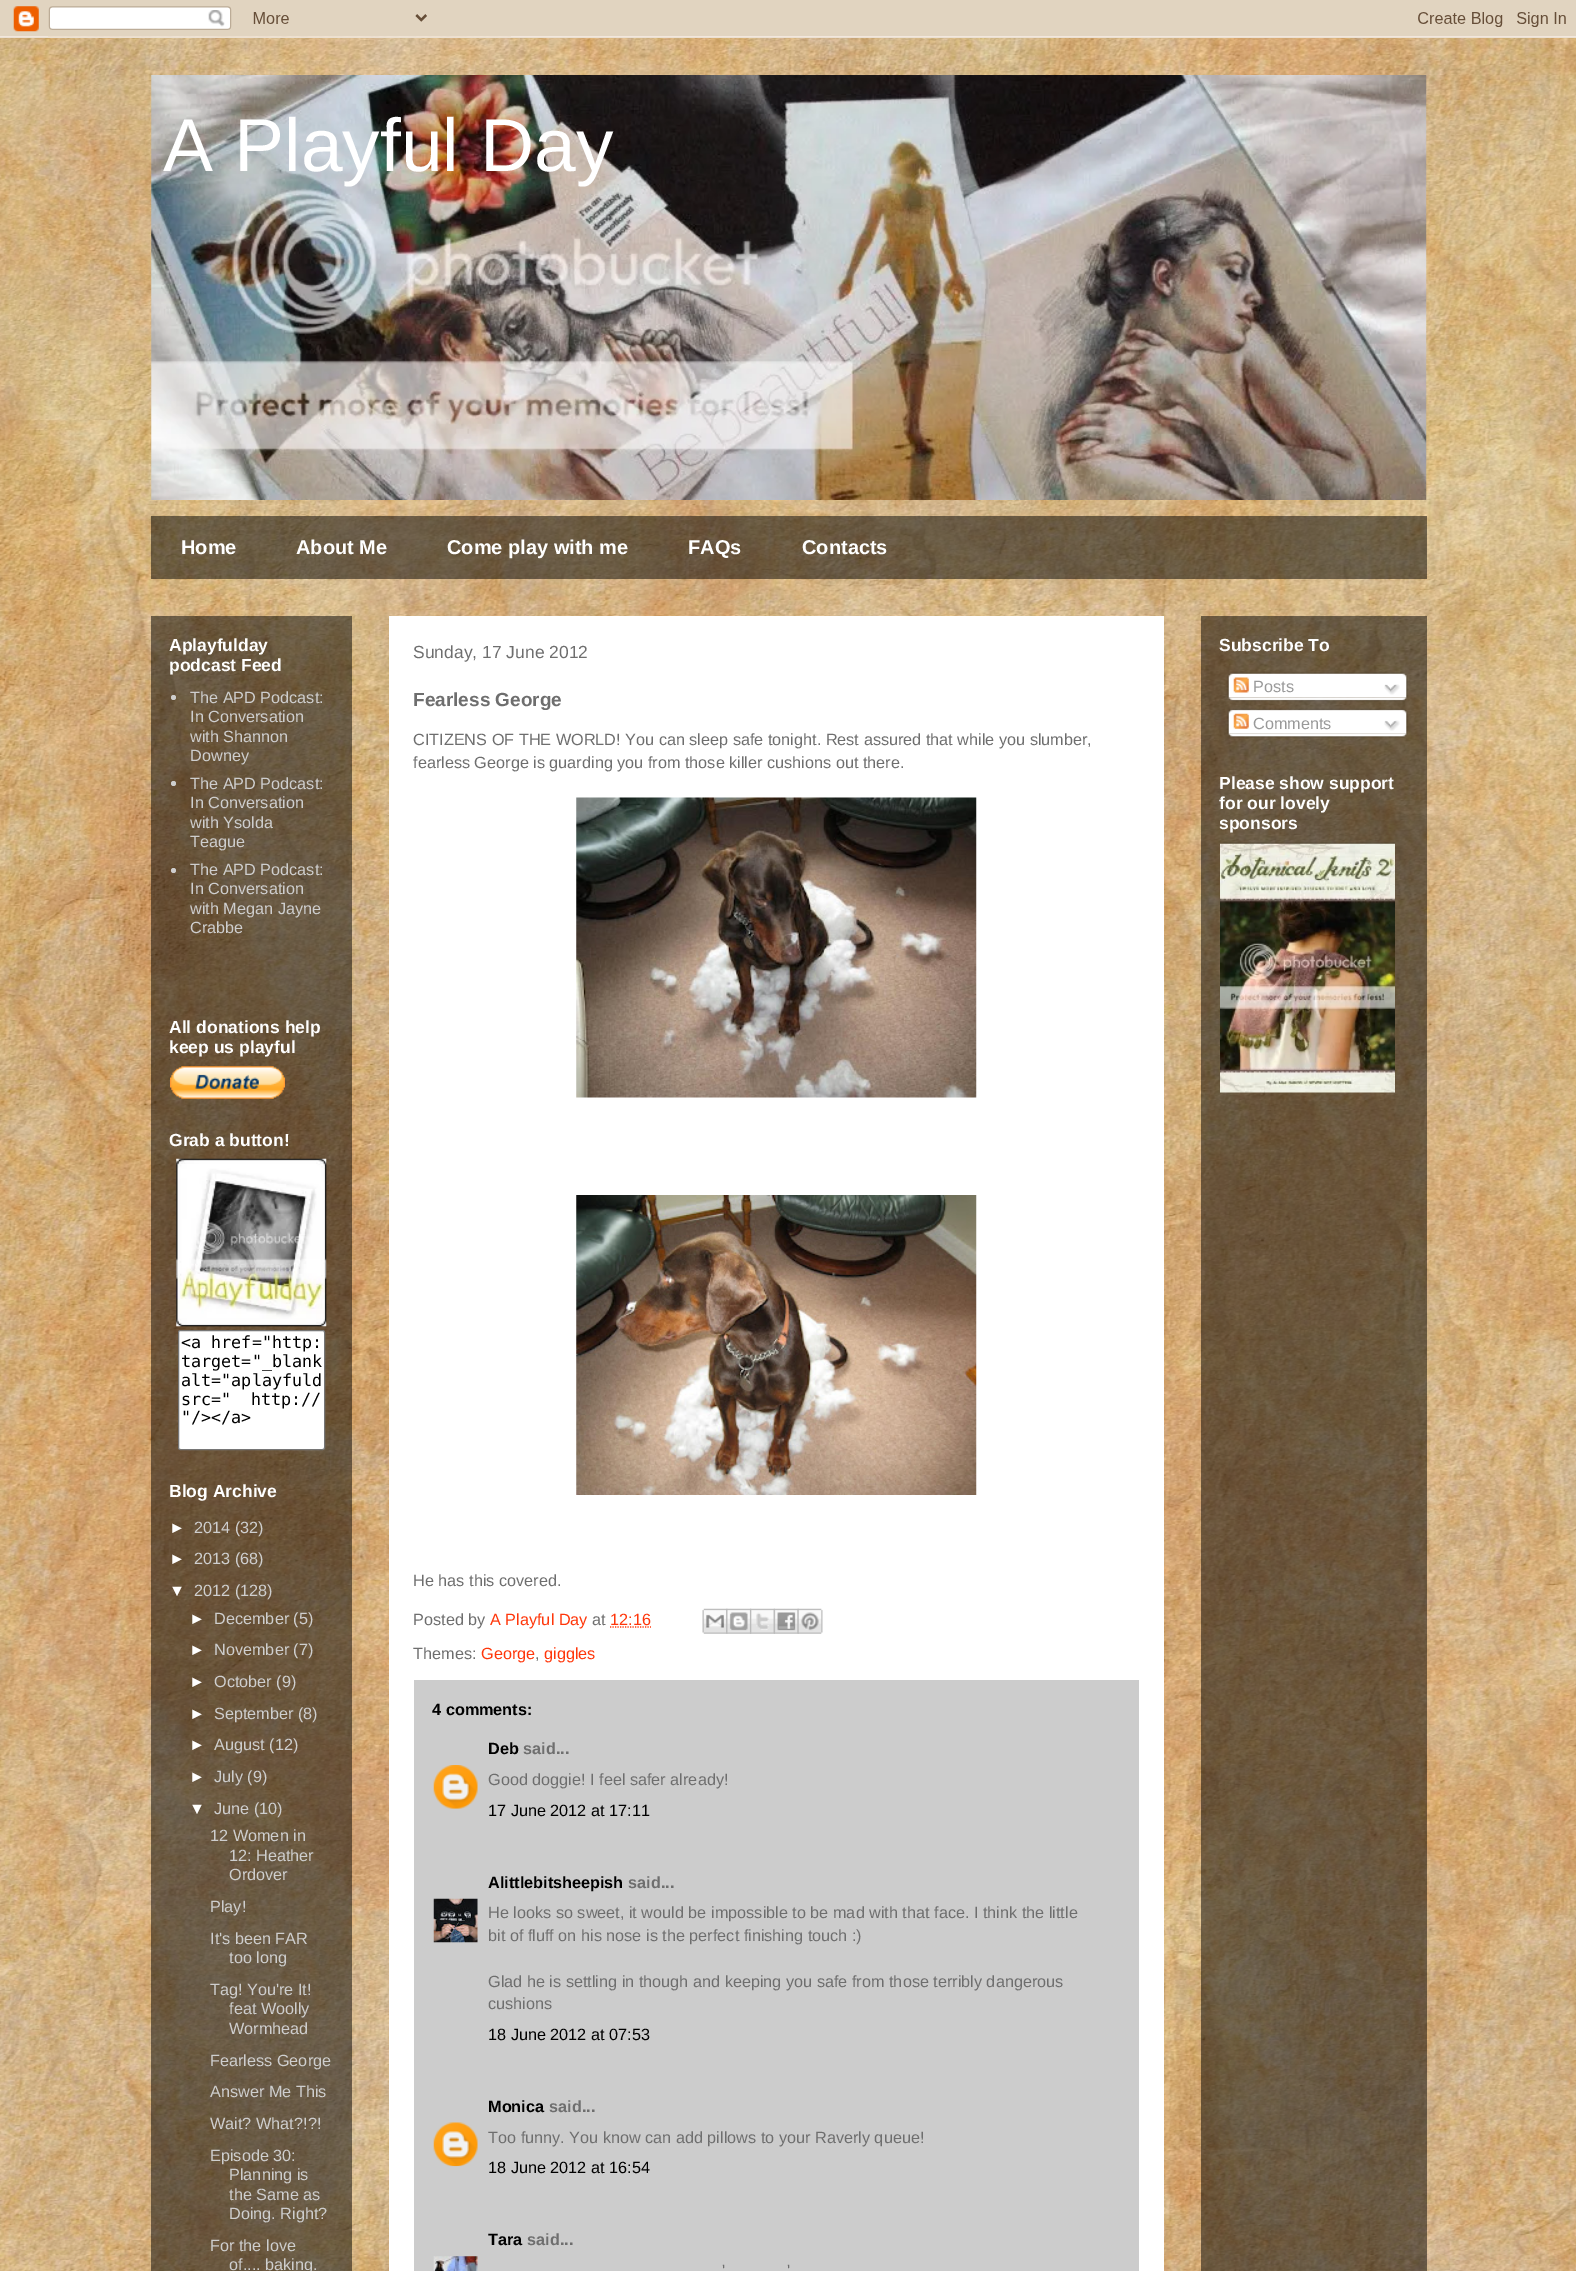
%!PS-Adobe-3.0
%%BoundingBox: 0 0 1576 2271
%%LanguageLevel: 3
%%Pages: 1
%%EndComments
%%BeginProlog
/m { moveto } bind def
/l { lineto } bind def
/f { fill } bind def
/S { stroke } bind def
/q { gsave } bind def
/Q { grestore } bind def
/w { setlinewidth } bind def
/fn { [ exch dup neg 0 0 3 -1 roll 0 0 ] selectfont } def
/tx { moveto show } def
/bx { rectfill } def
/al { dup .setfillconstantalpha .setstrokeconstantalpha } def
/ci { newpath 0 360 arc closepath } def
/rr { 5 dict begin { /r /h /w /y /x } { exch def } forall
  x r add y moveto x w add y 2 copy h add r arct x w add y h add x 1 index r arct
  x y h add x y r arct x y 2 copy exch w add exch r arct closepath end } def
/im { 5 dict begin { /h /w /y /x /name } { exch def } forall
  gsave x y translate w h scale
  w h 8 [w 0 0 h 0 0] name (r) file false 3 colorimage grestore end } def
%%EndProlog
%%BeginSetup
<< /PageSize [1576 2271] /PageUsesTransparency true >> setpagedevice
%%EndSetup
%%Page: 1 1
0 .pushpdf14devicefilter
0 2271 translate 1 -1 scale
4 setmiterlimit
1 setgray
0 0 1576 2271 bx
(image0.raw) 0 36 1576 2235 im
(image1.raw) 0 0 1576 38 im
(image2.raw) 151 75 1276 425 im
/LiberationSans-Regular 75 fn
(A Playful Day) 163 171 tx
0.5 al
0 setgray
151 516 1276 63 bx
/LiberationSans-Bold 20 fn
1 al
1 setgray
(Home) 181 554 tx
(About Me) 296 554 tx
(Come play with me) 447 554 tx
(FAQs) 688 554 tx
(Contacts) 802 554 tx
0.5 al
0 setgray
151 616 201 1655 bx
1201 616 226 1655 bx
/LiberationSans-Bold 17.5 fn
1 al
1 setgray
(Aplayfulday) 169 651 tx
(podcast Feed) 169 671 tx
0.808 setgray
173.5 697.5 2.5 ci f
/LiberationSans-Regular 16.25 fn
(The APD Podcast:) 190 703 tx
(In Conversation) 190 722 tx
(with Shannon) 190 742 tx
(Downey) 190 761 tx
173.5 783.5 2.5 ci f
(The APD Podcast:) 190 789 tx
(In Conversation) 190 808 tx
(with Ysolda) 190 828 tx
(Teague) 190 847 tx
173.5 870.5 2.5 ci f
(The APD Podcast:) 190 875 tx
(In Conversation) 190 894 tx
(with Megan Jayne) 190 914 tx
(Crabbe) 190 933 tx
/LiberationSans-Bold 17.5 fn
1 setgray
(All donations help) 169 1033 tx
(keep us playful) 169 1053 tx
(image3.raw) 170 1066 115 33 im
(Grab a button!) 169 1146 tx
(image4.raw) 176 1158 151 169 im
178.5 1330.5 146 119 2 rr q f Q
0.463 setgray
S
/DejaVuSansMono-Regular 16.75 fn
0 setgray
(<a href="http:) 181 1348 tx
(target="_blank) 181 1367 tx
(alt="aplayfuld) 181 1386 tx
(src=") 181 1405 tx
(http://) 251 1405 tx
("/></a>) 181 1423 tx
/LiberationSans-Bold 17.5 fn
1 setgray
(Blog Archive) 169 1497 tx
/LiberationSans-Regular 16.25 fn
(►) 169 1533 tx
0.808 setgray
(2014 \(32\)) 194 1533 tx
1 setgray
(►) 169 1564 tx
0.808 setgray
(2013 \(68\)) 194 1564 tx
1 setgray
(▼) 169 1596 tx
0.808 setgray
(2012 \(128\)) 194 1596 tx
1 setgray
(►) 189 1624 tx
0.808 setgray
(December \(5\)) 214 1624 tx
1 setgray
(►) 189 1655 tx
0.808 setgray
(November \(7\)) 214 1655 tx
1 setgray
(►) 189 1687 tx
0.808 setgray
(October \(9\)) 214 1687 tx
1 setgray
(►) 189 1719 tx
0.808 setgray
(September \(8\)) 214 1719 tx
1 setgray
(►) 189 1750 tx
0.808 setgray
(August \(12\)) 214 1750 tx
1 setgray
(►) 189 1782 tx
0.808 setgray
(July \(9\)) 214 1782 tx
1 setgray
(▼) 189 1814 tx
0.808 setgray
(June \(10\)) 214 1814 tx
(12 Women in) 210 1841 tx
(12: Heather) 229 1861 tx
(Ordover) 229 1880 tx
(Play!) 210 1912 tx
(It's been FAR) 210 1944 tx
(too long) 229 1963 tx
(Tag! You're It!) 210 1995 tx
(feat Woolly) 229 2014 tx
(Wormhead) 229 2034 tx
(Fearless George) 210 2066 tx
(Answer Me This) 210 2097 tx
(Wait? What?!?!) 210 2129 tx
(Episode 30:) 210 2161 tx
(Planning is) 229 2180 tx
(the Same as) 229 2200 tx
(Doing. Right?) 229 2219 tx
(For the love) 210 2251 tx
(of.... baking.) 229 2270 tx
1 setgray
389 616 775 1655 bx
/LiberationSans-Regular 17.5 fn
0.431 setgray
(Sunday, 17 June 2012) 413 658 tx
/LiberationSans-Bold 19 fn
(Fearless George) 413 706 tx
/LiberationSans-Regular 16.25 fn
(CITIZENS OF THE WORLD! You can sleep safe tonight. Rest assured that while you slumber,) 413 745 tx
(fearless George is guarding you from those killer cushions out there.) 413 768 tx
(image5.raw) 576 797 401 301 im
(image6.raw) 576 1195 401 300 im
(He has this covered.) 413 1586 tx
(Posted by) 413 1625 tx
1 0.212 0.039 setrgbcolor
(A Playful Day) 490 1625 tx
0.431 setgray
(at) 592 1625 tx
1 0.212 0.039 setrgbcolor
(12:16) 610 1625 tx
1.2 w
[1.25 1.25] 0 setdash
610 1627 m 651 1627 l S
(image7.raw) 702 1608 26 26 im
(image8.raw) 726 1608 26 26 im
(image9.raw) 750 1608 25 26 im
(image10.raw) 773 1608 26 26 im
(image11.raw) 797 1608 26 26 im
0.431 setgray
(Themes:) 413 1659 tx
1 0.212 0.039 setrgbcolor
(George) 481 1659 tx
0.431 setgray
(,) 535 1659 tx
1 0.212 0.039 setrgbcolor
(giggles) 544 1659 tx
0.8 setgray
414 1680 725 591 bx
/LiberationSans-Bold 16.25 fn
0 setgray
(4 comments:) 432 1715 tx
(Deb) 488 1754 tx
0.431 setgray
(said...) 523 1754 tx
(image12.raw) 433 1765 45 44 im
/LiberationSans-Regular 16.25 fn
(Good doggie! I feel safer already!) 488 1785 tx
0 setgray
(17 June 2012 at 17:11) 488 1816 tx
/LiberationSans-Bold 16.25 fn
(Alittlebitsheepish) 488 1888 tx
0.431 setgray
(said...) 628 1888 tx
(image13.raw) 433 1898 45 45 im
/LiberationSans-Regular 16.25 fn
(He looks so sweet, it would be impossible to be mad with that face. I think the little) 488 1918 tx
(bit of fluff on his nose is the perfect finishing touch :\)) 488 1941 tx
(Glad he is settling in though and keeping you safe from those terribly dangerous) 488 1987 tx
(cushions) 488 2009 tx
0 setgray
(18 June 2012 at 07:53) 488 2040 tx
/LiberationSans-Bold 16.25 fn
(Monica) 488 2112 tx
0.431 setgray
(said...) 549 2112 tx
(image14.raw) 433 2122 45 45 im
/LiberationSans-Regular 16.25 fn
(Too funny. You know can add pillows to your Raverly queue!) 488 2143 tx
0 setgray
(18 June 2012 at 16:54) 488 2173 tx
/LiberationSans-Bold 16.25 fn
(Tara) 488 2245 tx
0.431 setgray
(said...) 527 2245 tx
(image15.raw) 433 2256 45 15 im
/LiberationSans-Regular 16.25 fn
(') 722 2276 tx
(') 787 2276 tx
/LiberationSans-Bold 17.5 fn
1 setgray
(Subscribe To) 1219 651 tx
(image16.raw) 1227 672 181 26 im
(image17.raw) 1233 677 16 16 im
/LiberationSans-Regular 16.25 fn
0.6 setgray
(Posts) 1253 692 tx
(image18.raw) 1384 684 16 11 im
(image19.raw) 1228 697 179 5 im
(image20.raw) 1227 708 181 26 im
(image21.raw) 1233 713 16 16 im
(Comments) 1253 729 tx
(image22.raw) 1384 720 16 11 im
(image23.raw) 1228 733 180 5 im
/LiberationSans-Bold 17.5 fn
1 setgray
(Please show support) 1219 789 tx
(for our lovely) 1219 809 tx
(sponsors) 1219 829 tx
(image24.raw) 1220 842 175 251 im
.poppdf14devicefilter showpage
%%EOF
